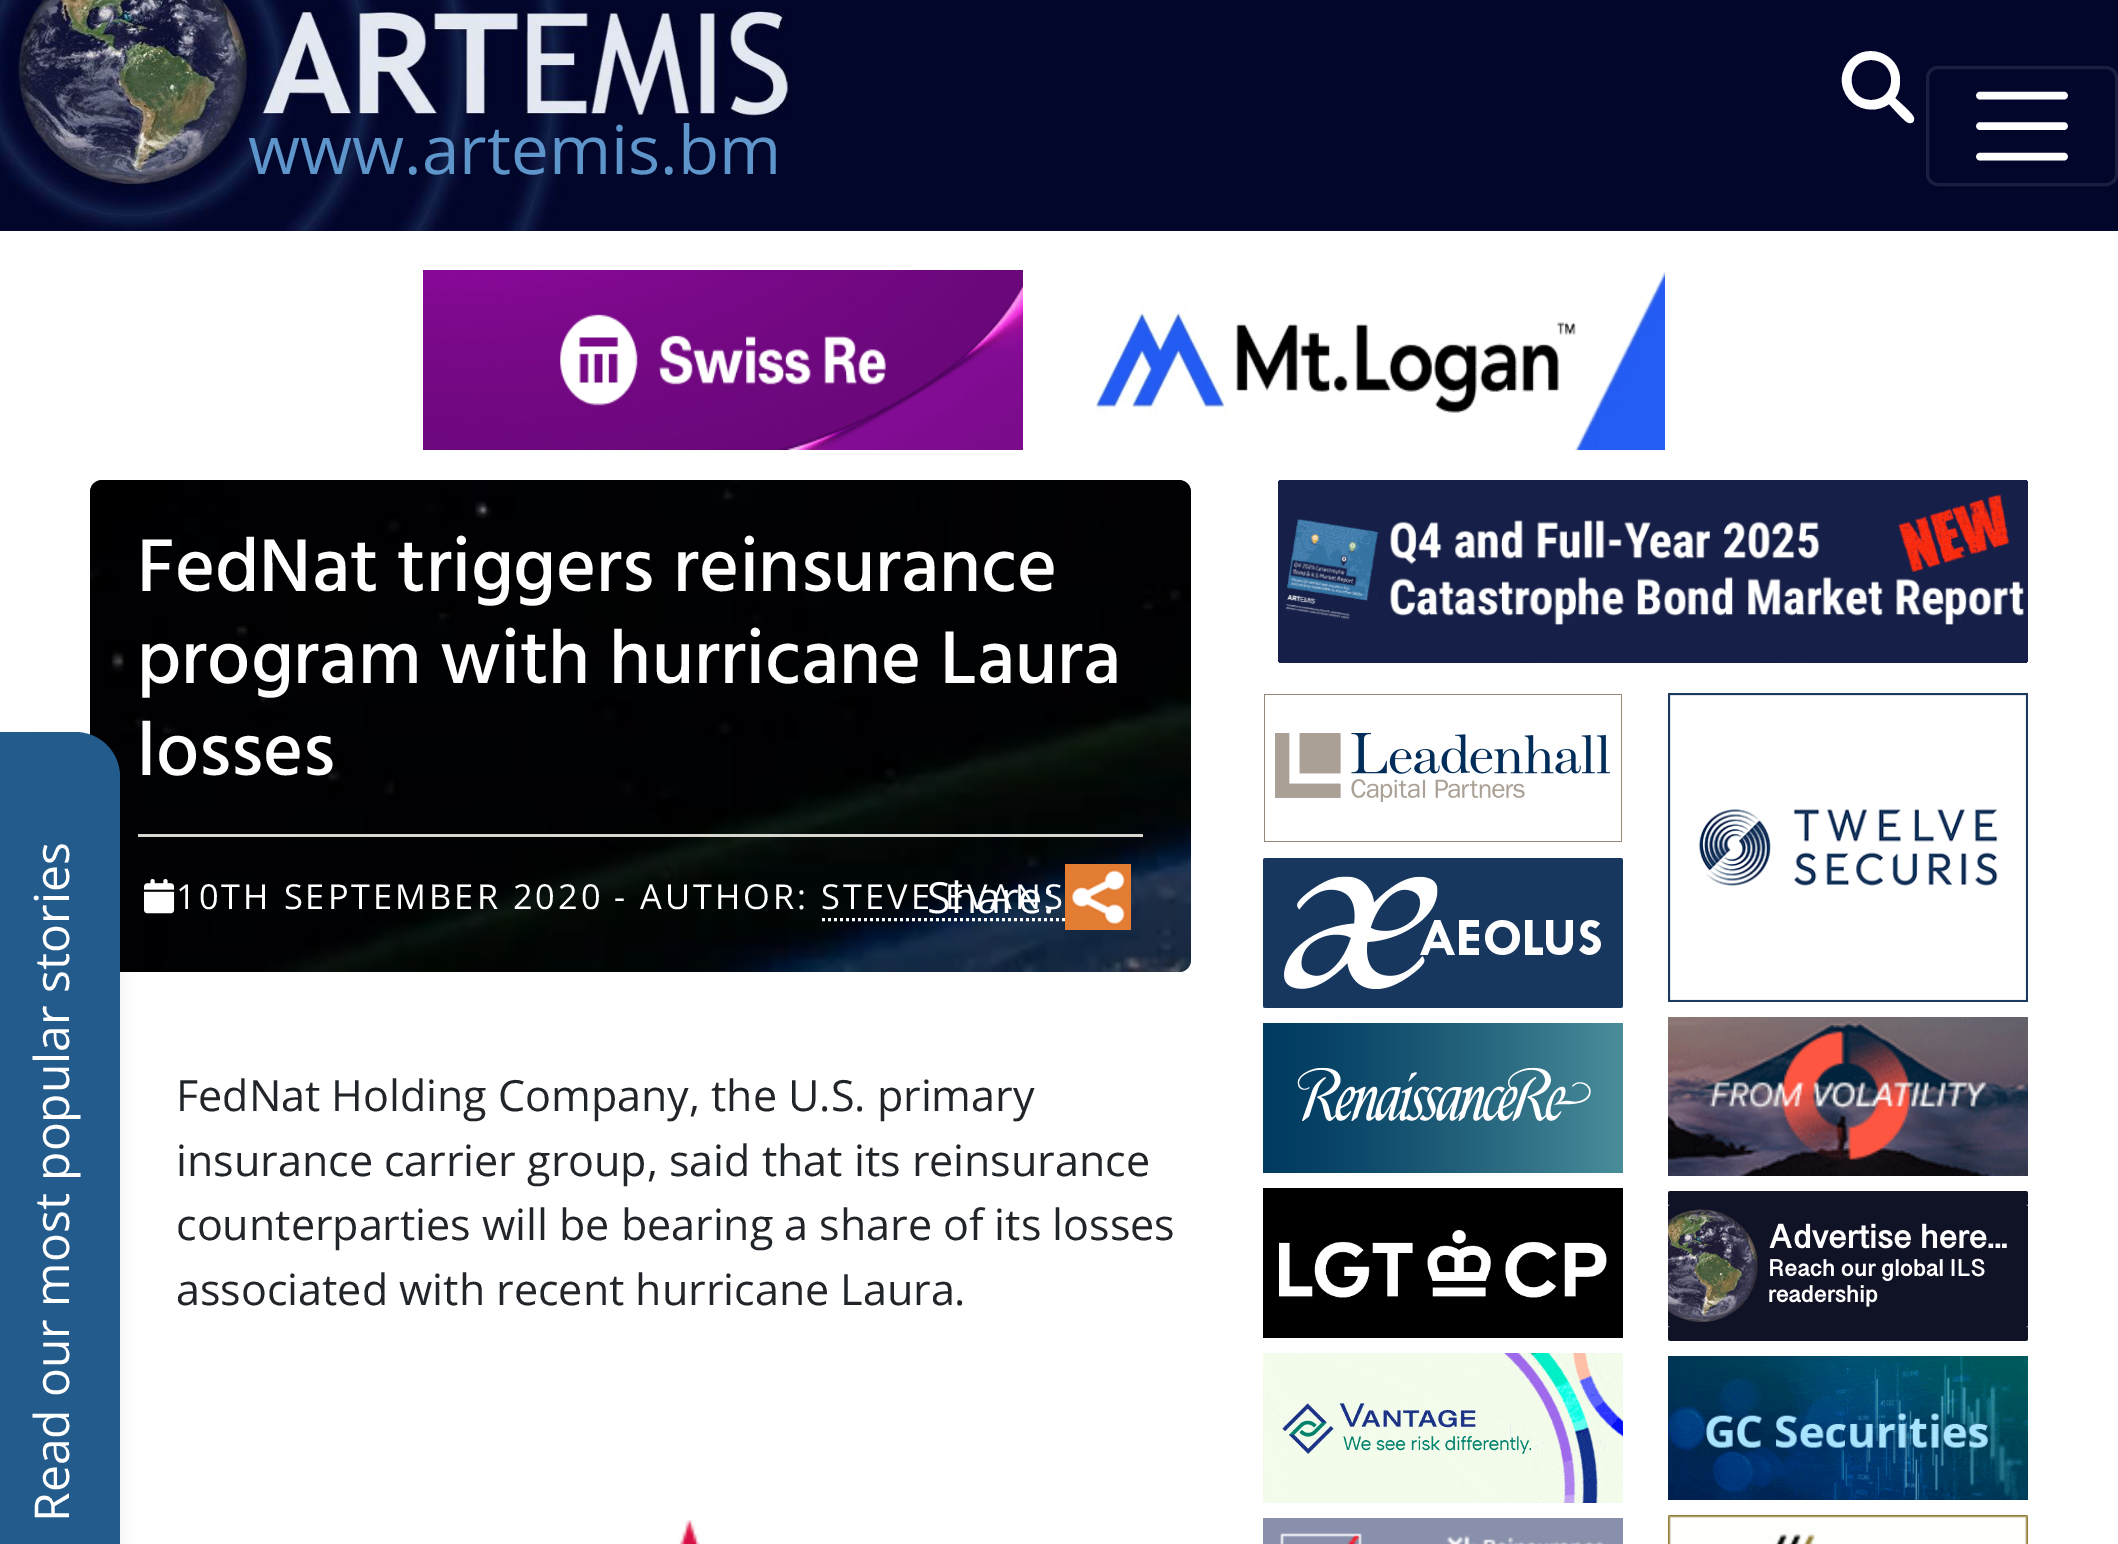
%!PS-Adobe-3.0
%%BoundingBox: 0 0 2118 1544
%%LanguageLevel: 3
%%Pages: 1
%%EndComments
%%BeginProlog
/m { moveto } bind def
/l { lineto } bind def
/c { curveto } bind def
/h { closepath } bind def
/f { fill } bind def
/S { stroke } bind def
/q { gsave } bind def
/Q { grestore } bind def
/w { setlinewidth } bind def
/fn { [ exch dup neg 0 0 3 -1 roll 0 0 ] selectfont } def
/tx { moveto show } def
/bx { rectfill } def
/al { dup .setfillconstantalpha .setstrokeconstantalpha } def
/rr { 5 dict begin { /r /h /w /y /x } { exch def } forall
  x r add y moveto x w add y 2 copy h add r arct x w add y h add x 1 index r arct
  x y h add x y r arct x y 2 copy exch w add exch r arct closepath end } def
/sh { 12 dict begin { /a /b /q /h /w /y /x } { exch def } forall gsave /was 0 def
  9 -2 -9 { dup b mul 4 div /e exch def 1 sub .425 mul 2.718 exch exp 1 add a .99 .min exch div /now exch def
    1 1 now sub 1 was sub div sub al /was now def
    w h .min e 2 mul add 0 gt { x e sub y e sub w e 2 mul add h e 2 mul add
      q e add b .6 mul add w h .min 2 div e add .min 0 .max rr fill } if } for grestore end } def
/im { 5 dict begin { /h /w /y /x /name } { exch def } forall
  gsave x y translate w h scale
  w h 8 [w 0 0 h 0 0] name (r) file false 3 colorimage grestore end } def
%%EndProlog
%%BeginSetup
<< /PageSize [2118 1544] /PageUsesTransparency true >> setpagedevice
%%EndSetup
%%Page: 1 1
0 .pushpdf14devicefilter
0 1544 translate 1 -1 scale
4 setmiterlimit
1 setgray
0 0 2118 1544 bx
0.008 0.024 0.165 setrgbcolor
790 0 1328 231 bx
1 setgray
1900 80 m 1900 87 1899 93 1895 98 c 1907 109 l 1909 112 1917 117 1913 122 c 1908 126 1903 118 1900 116 c 1889 104 l 1878 112 1863 111 1853 103 c 1847 98 1843 91 1842 83 c 1841 77 1843 70 1847 64 c 1863 40 1900 52 1900 80 c h 1871 100 m 1898 100 1898 60 1871 60 c 1845 60 1845 100 1871 100 c h f
(image0.raw) 0 0 790 231 im
/OpenSans-Regular 67.25 fn
0.369 0.584 0.792 setrgbcolor
(www.artemis.bm) 248 174 tx
0.106 0.122 0.247 setrgbcolor
3 w
1927.5 67.5 189 117 10.5 rr S
1 setgray
7.6 w
1 setlinecap
1980 95.5 m 2064 95.5 l 1980 126 m 2064 126 l 1980 156.5 m 2064 156.5 l S
(image3.raw) 90 480 1101 492 im
0.843 0.843 0.816 setrgbcolor
138 834 1005 3 bx
(image5.raw) 144 878 31 36 im
0 setgray
3 747 114 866 42 9 0.1 sh
0.137 0.361 0.549 setrgbcolor
0 732 m 75 732 l 100 732 120 752 120 777 c 120 1544 l 120 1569 100 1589 75 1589 c 0 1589 l h f
/OpenSans-Regular 48 fn
1 setgray
q 69 1522 translate -90 rotate 0 0 m (Read our most popular stories) show Q
(image1.raw) 423 270 600 180 im
(image2.raw) 1095 271 570 179 im
/Hind-Medium 76.6 fn
(FedNat triggers reinsurance) 137 591 tx
(program with hurricane Laura) 137 683 tx
(losses) 137 775 tx
/OpenSans-Regular 43 fn
(Share:) 927 913 tx
(image4.raw) 1065 864 66 66 im
/OpenSans-Regular 34.4 fn
176 909 m 3 0 (10TH SEPTEMBER 2020) ashow
614 909 m 3 0 (- AUTHOR: STEVE EVANS) ashow
3 w
0 setlinecap
[3 3] 0 setdash
822 919.5 m 1065 919.5 l S
/OpenSans-Regular 43 fn
0.129 0.145 0.161 setrgbcolor
(FedNat Holding Company, the U.S. primary) 176 1111 tx
(insurance carrier group, said that its reinsurance) 176 1176 tx
(counterparties will be bearing a share of its losses) 176 1240 tx
(associated with recent hurricane Laura.) 176 1305 tx
(image6.raw) 679 1519 22 25 im
(image7.raw) 1278 480 750 183 im
(image8.raw) 1264 694 358 148 im
(image9.raw) 1263 858 360 150 im
(image10.raw) 1263 1023 360 150 im
(image11.raw) 1263 1188 360 150 im
(image12.raw) 1263 1353 360 150 im
(image13.raw) 1263 1518 360 26 im
(image14.raw) 1668 693 360 309 im
(image15.raw) 1668 1017 360 159 im
(image16.raw) 1668 1191 360 150 im
(image17.raw) 1668 1356 360 144 im
(image18.raw) 1668 1515 360 29 im
.poppdf14devicefilter showpage
%%EOF
